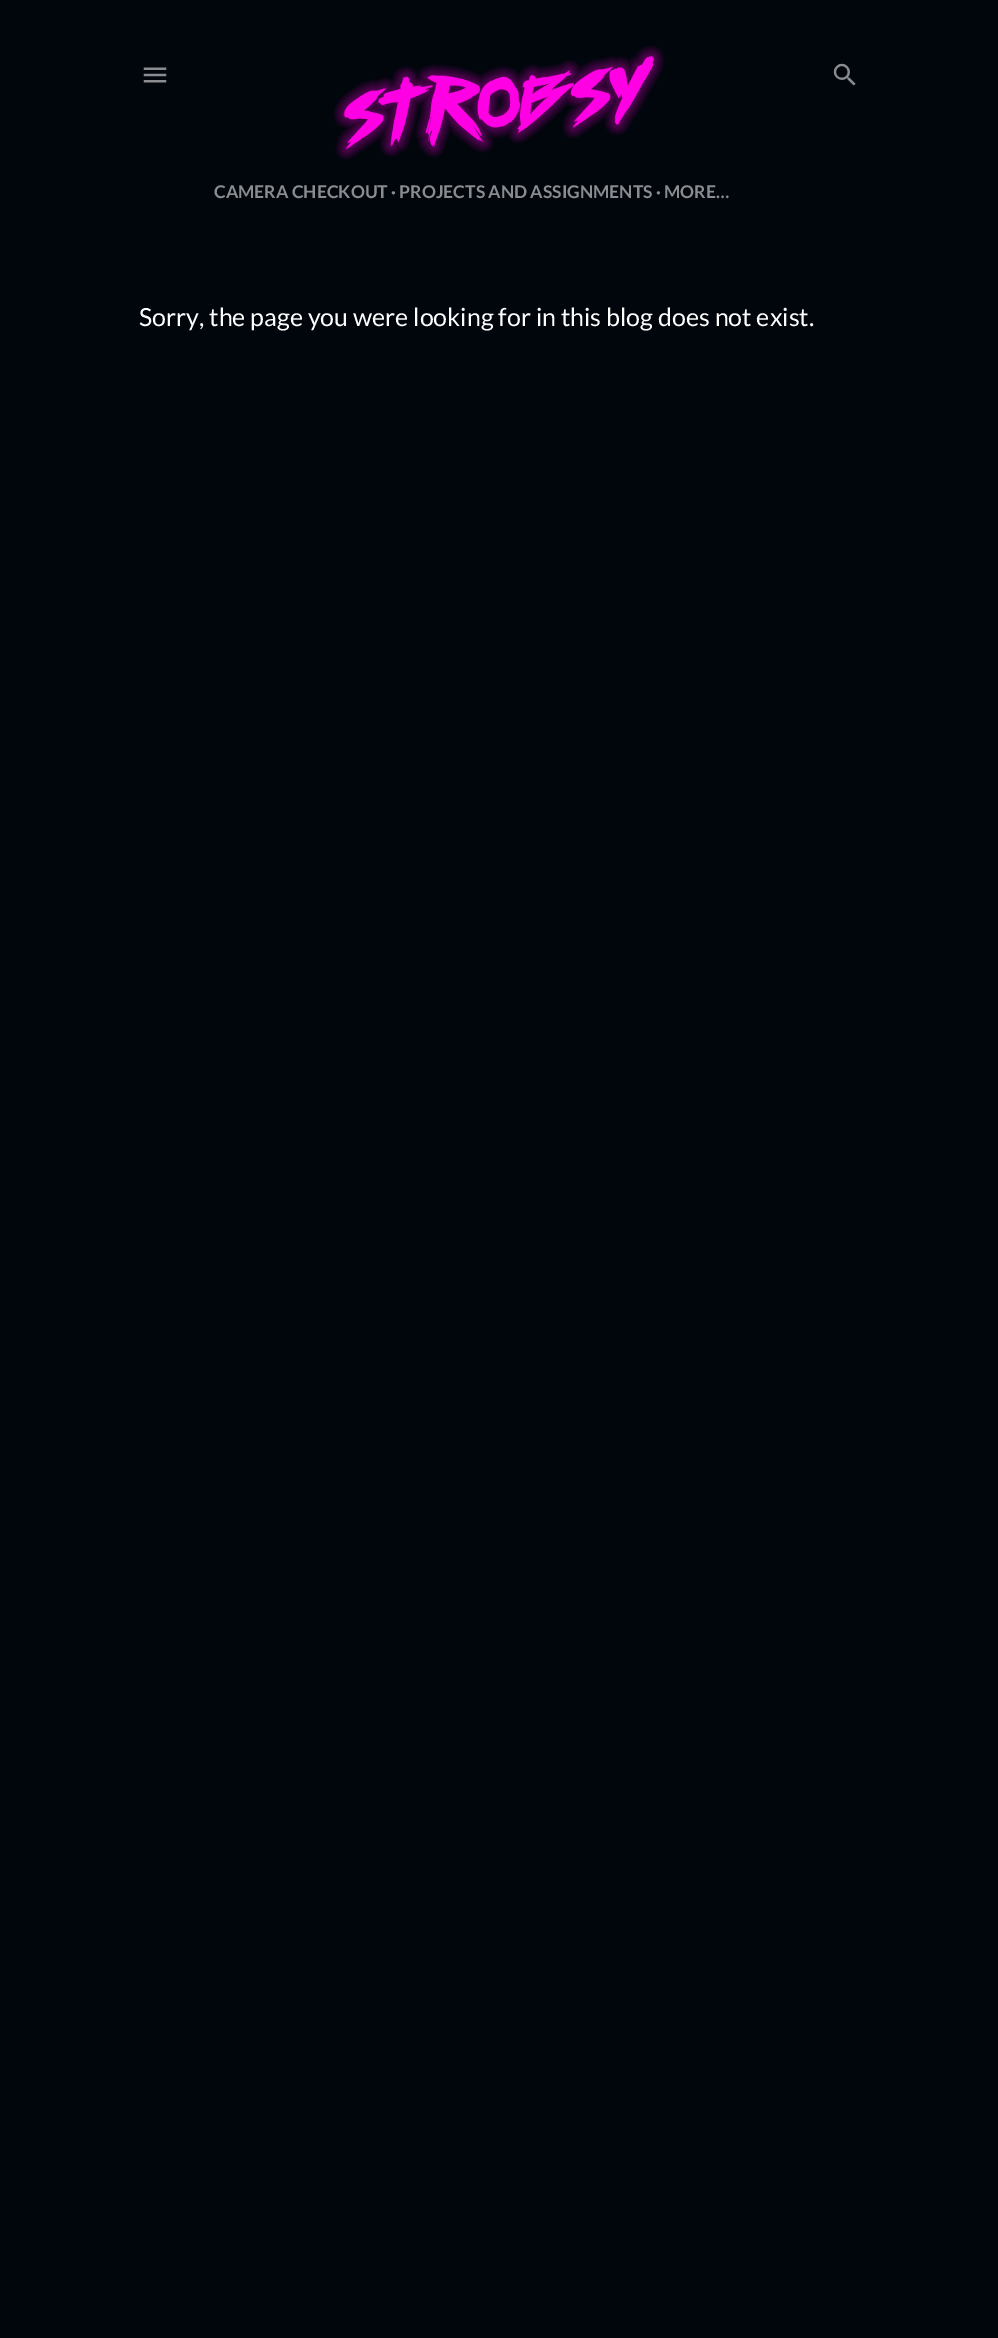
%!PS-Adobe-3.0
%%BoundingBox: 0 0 998 2338
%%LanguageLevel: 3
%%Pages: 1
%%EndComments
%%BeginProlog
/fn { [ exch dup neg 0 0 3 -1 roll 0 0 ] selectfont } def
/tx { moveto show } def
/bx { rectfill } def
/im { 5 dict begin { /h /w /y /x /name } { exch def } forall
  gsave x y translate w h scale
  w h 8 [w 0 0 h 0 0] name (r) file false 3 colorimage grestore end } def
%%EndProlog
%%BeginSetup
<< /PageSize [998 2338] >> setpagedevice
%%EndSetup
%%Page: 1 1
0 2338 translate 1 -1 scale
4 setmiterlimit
0.004 0.02 0.047 setrgbcolor
0 0 998 2338 bx
(image0.raw) 143 67 24 16 im
(image1.raw) 833 63 23 23 im
(image2.raw) 333 45 332 115 im
/Lato-Bold 17.5 fn
0.541 0.549 0.561 setrgbcolor
(CAMERA CHECKOUT · PROJECTS AND ASSIGNMENTS · MORE…) 214 198 tx
/Lato-Regular 25 fn
1 setgray
(Sorry, the page you were looking for in this blog does not exist.) 139 326 tx
showpage
%%EOF
